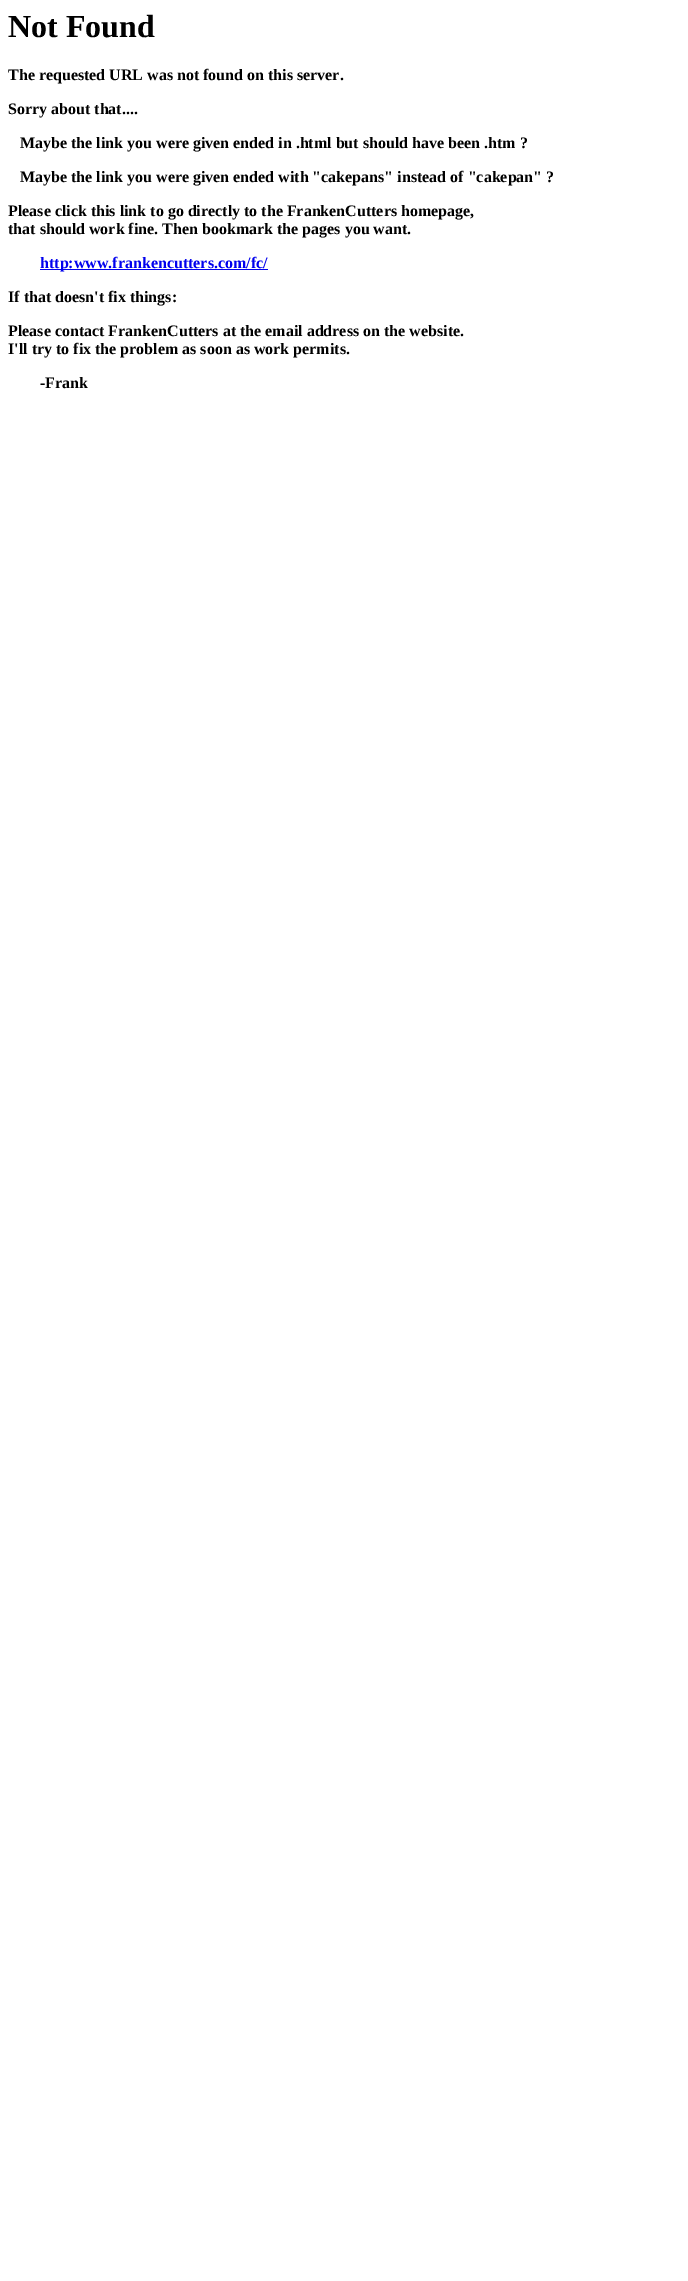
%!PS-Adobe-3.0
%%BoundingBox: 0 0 688 2281
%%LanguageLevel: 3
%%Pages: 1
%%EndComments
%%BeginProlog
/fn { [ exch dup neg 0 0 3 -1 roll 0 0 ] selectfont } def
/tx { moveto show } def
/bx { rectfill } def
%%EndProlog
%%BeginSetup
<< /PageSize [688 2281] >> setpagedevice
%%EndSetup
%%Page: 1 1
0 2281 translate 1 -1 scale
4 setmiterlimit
1 setgray
0 0 688 2281 bx
/LiberationSerif-Bold 32 fn
0 setgray
(Not Found) 8 37 tx
/LiberationSerif-Bold 16 fn
(The requested URL was not found on this server.) 8 80 tx
(Sorry about that....) 8 114 tx
(Maybe the link you were given ended in .html but should have been .htm ?) 20 148 tx
(Maybe the link you were given ended with "cakepans" instead of "cakepan" ?) 20 182 tx
(Please click this link to go directly to the FrankenCutters homepage,) 8 216 tx
(that should work fine. Then bookmark the pages you want.) 8 234 tx
0 0 0.933 setrgbcolor
40 269 228 1 bx
(http:www.frankencutters.com/fc/) 40 268 tx
0 setgray
(If that doesn't fix things:) 8 302 tx
(Please contact FrankenCutters at the email address on the website.) 8 336 tx
(I'll try to fix the problem as soon as work permits.) 8 354 tx
(-Frank) 40 388 tx
showpage
%%EOF
